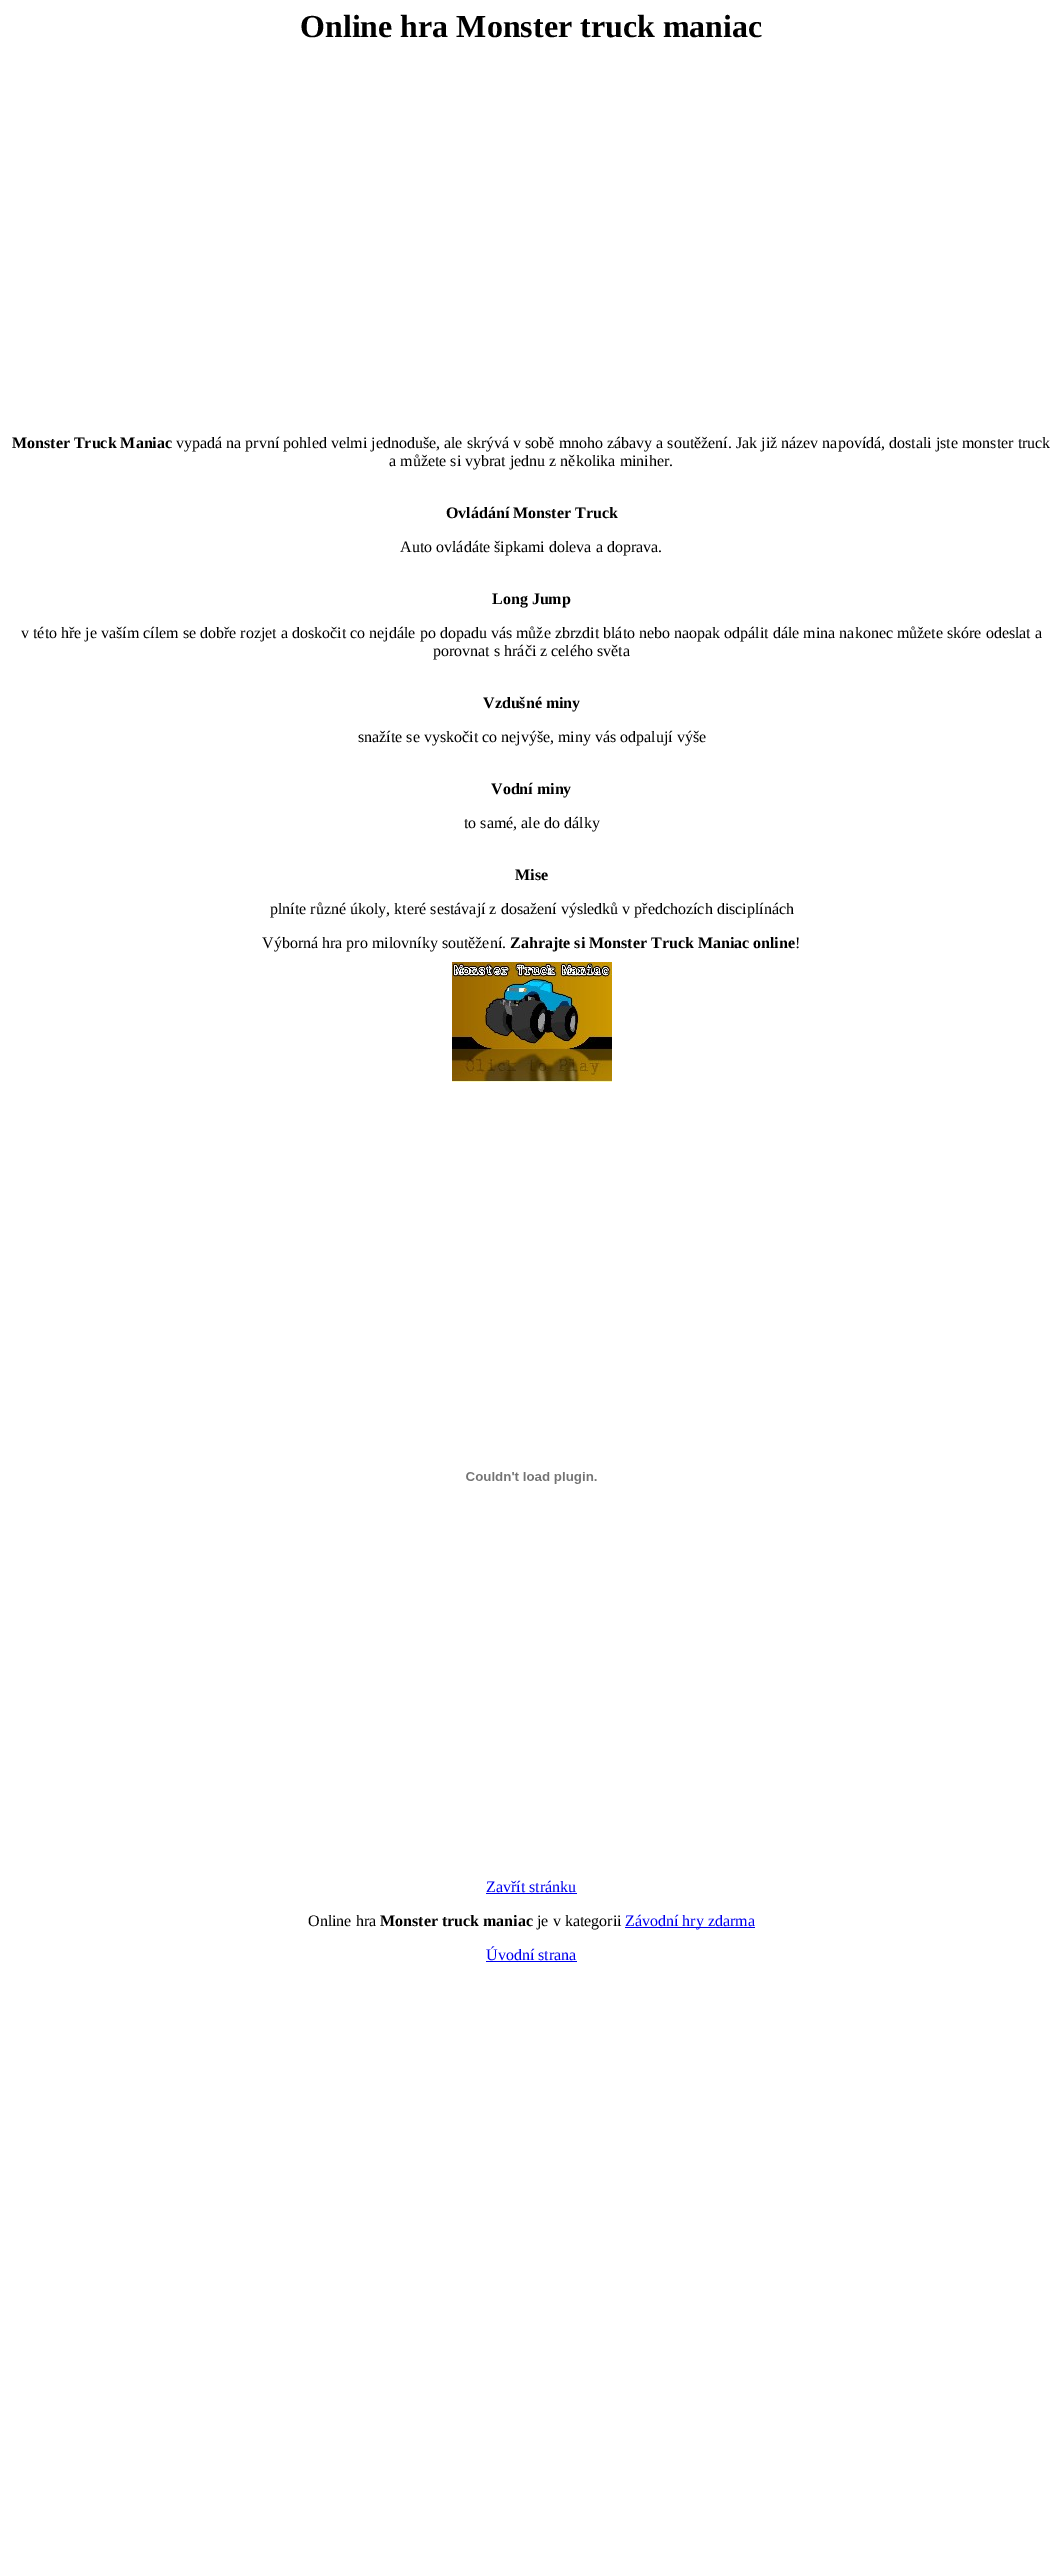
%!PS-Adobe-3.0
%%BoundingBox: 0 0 1063 2575
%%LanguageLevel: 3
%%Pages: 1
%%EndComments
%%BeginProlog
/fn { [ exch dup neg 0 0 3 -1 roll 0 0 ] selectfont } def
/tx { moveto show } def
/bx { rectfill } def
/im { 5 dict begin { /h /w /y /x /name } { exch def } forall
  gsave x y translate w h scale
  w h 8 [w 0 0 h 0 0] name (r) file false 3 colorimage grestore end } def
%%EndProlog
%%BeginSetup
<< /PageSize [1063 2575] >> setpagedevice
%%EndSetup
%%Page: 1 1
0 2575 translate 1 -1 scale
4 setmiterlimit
1 setgray
0 0 1063 2575 bx
/LiberationSerif-Bold 32 fn
0 setgray
(Online hra Monster truck maniac) 300 37 tx
/LiberationSerif-Bold 16 fn
(Monster Truck Maniac) 12 448 tx
/LiberationSerif-Regular 16 fn
(vypadá na první pohled velmi jednoduše, ale skrývá v sobě mnoho zábavy a soutěžení. Jak již název napovídá, dostali jste monster truck) 176 448 tx
(a můžete si vybrat jednu z několika miniher.) 389 466 tx
/LiberationSerif-Bold 16 fn
(Ovládání Monster Truck) 446 518 tx
/LiberationSerif-Regular 16 fn
(Auto ovládáte šipkami doleva a doprava.) 400 552 tx
/LiberationSerif-Bold 16 fn
(Long Jump) 492 604 tx
/LiberationSerif-Regular 16 fn
(v této hře je vaším cílem se dobře rozjet a doskočit co nejdále po dopadu vás může zbrzdit bláto nebo naopak odpálit dále mina nakonec můžete skóre odeslat a) 21 638 tx
(porovnat s hráči z celého světa) 433 656 tx
/LiberationSerif-Bold 16 fn
(Vzdušné miny) 483 708 tx
/LiberationSerif-Regular 16 fn
(snažíte se vyskočit co nejvýše, miny vás odpalují výše) 358 742 tx
/LiberationSerif-Bold 16 fn
(Vodní miny) 491 794 tx
/LiberationSerif-Regular 16 fn
(to samé, ale do dálky) 464 828 tx
/LiberationSerif-Bold 16 fn
(Mise) 515 880 tx
/LiberationSerif-Regular 16 fn
(plníte různé úkoly, které sestávají z dosažení výsledků v předchozích disciplínách) 270 914 tx
(Výborná hra pro milovníky soutěžení.) 262 948 tx
/LiberationSerif-Bold 16 fn
(Zahrajte si Monster Truck Maniac online) 510 948 tx
/LiberationSerif-Regular 16 fn
(!) 795 948 tx
(image0.raw) 452 962 160 120 im
(image1.raw) 466 1472 131 12 im
0 0 0.933 setrgbcolor
(Zavřít stránku) 486 1892 tx
486 1893 91 1 bx
0 setgray
(Online hra) 308 1926 tx
/LiberationSerif-Bold 16 fn
(Monster truck maniac) 380 1926 tx
/LiberationSerif-Regular 16 fn
(je v kategorii) 537 1926 tx
0 0 0.933 setrgbcolor
625 1927 130 1 bx
(Závodní hry zdarma) 625 1926 tx
(Úvodní strana) 486 1960 tx
486 1961 91 1 bx
showpage
%%EOF
